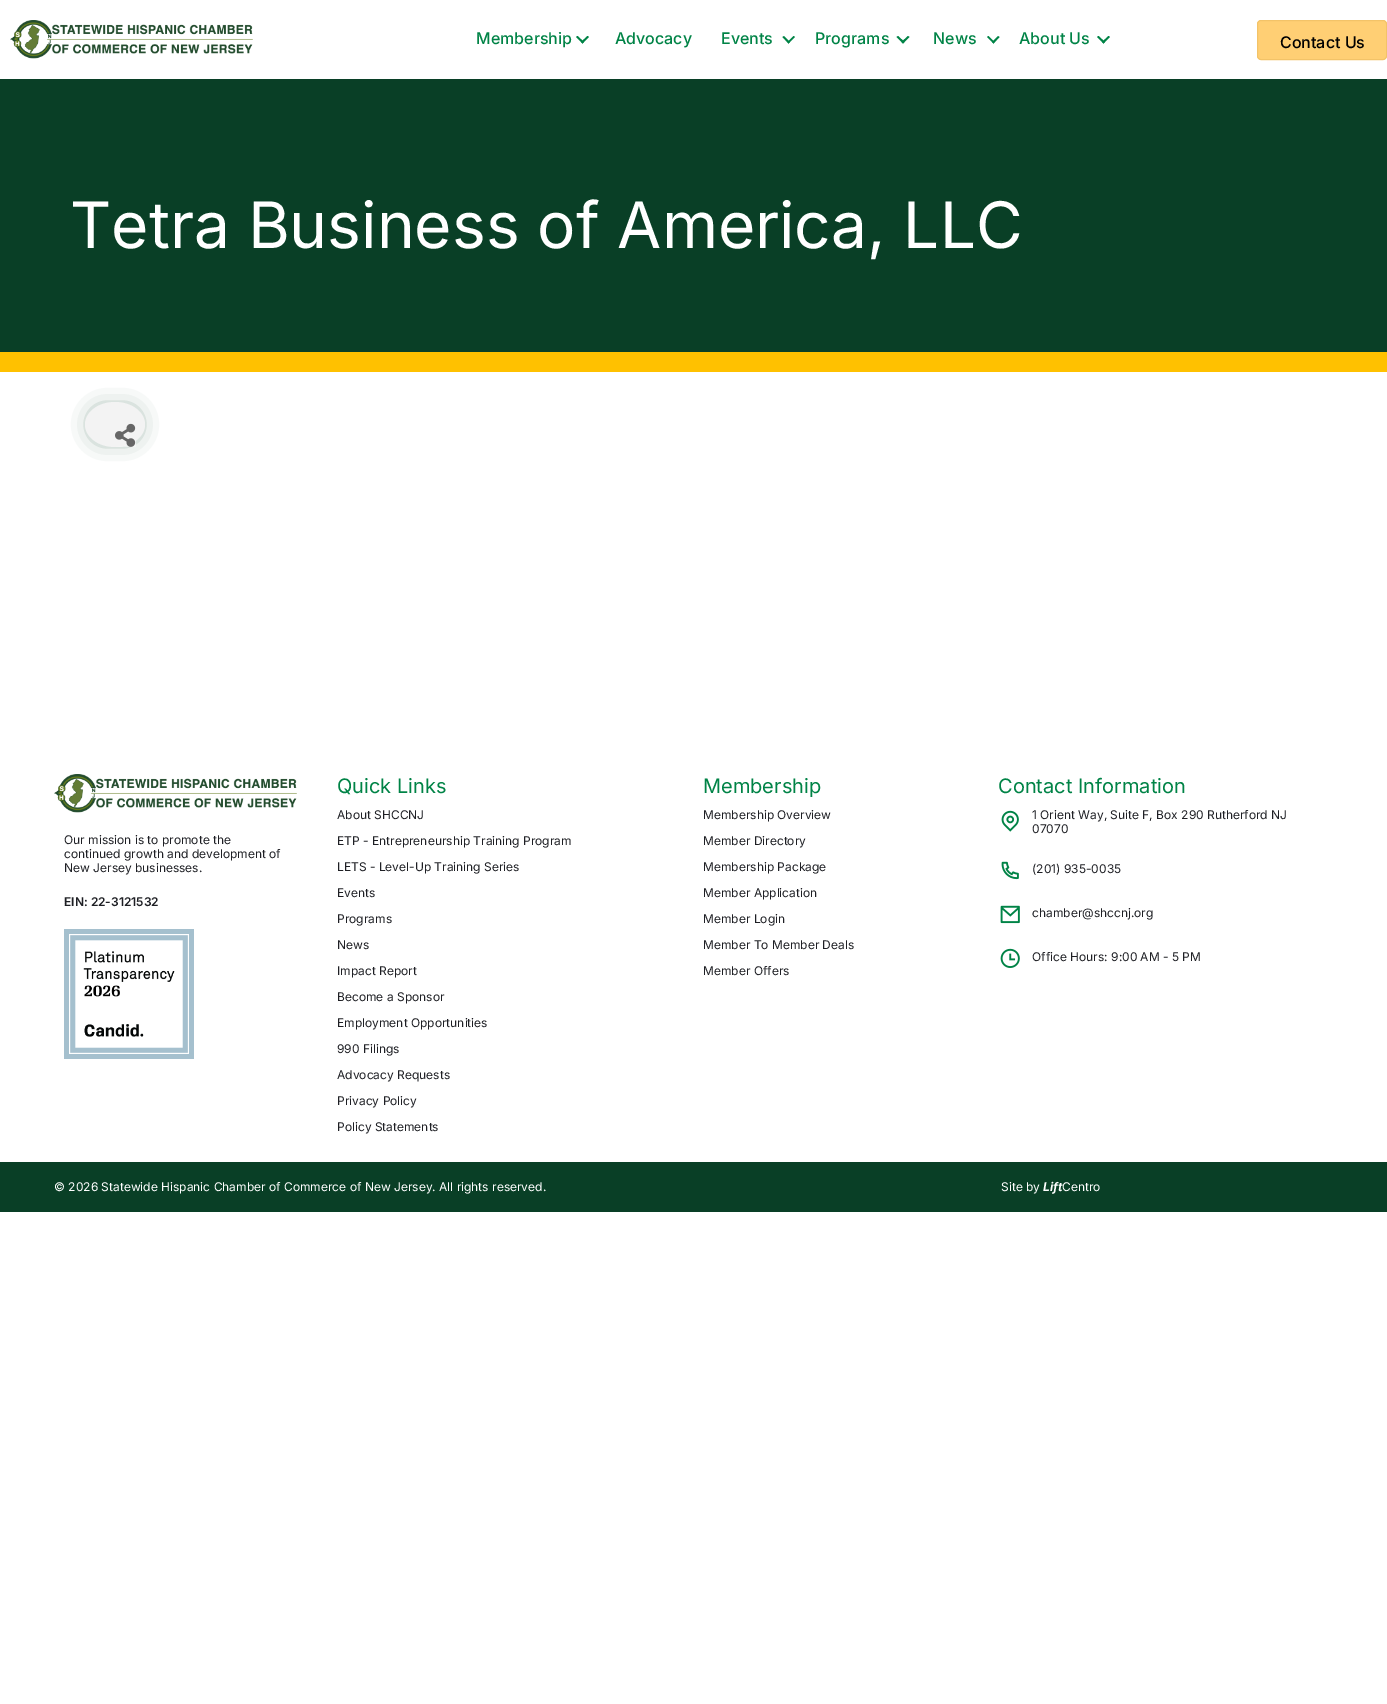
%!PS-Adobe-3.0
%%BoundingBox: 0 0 1387 1704
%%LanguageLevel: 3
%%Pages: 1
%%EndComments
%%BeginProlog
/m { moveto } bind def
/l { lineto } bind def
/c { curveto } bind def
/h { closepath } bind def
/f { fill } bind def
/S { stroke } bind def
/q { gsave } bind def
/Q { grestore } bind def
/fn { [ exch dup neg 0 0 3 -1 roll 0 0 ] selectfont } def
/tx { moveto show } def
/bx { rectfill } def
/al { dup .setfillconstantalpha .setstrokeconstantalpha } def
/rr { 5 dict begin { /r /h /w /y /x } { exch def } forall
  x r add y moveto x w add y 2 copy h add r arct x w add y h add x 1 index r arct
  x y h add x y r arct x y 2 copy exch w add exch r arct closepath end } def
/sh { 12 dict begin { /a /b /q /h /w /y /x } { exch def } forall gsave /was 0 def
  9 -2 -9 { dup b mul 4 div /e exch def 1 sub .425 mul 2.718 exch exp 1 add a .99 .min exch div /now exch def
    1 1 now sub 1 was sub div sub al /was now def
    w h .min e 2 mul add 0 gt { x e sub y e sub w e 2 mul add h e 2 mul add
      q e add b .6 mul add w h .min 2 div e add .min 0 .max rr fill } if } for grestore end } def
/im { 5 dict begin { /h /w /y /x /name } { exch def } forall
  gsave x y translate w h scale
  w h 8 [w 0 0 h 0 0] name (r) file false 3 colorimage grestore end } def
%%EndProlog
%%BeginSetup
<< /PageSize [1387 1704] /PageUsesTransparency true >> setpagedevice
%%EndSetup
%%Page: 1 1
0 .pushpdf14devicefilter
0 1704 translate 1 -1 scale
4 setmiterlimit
1 setgray
0 0 1387 1704 bx
(image0.raw) 10 20 243 39 im
/Inter-Medium 16 fn
0 0.514 0.275 setrgbcolor
(Membership) 476 44 tx
587.5 36 m 589 37 l 582.5 43.5 l 581 42 l h f
577.5 36 m 584 42 l 582.5 43.5 l 576 37 l h f
(Advocacy) 615 44 tx
(Events) 721 44 tx
793.5 36 m 795 37 l 788.5 43.5 l 787.5 42 l h f
784 36 m 790 42 l 788.5 43.5 l 782.5 37 l h f
(Programs) 815 44 tx
908 36 m 909.5 37 l 903 43.5 l 901.5 42 l h f
898 36 m 904.5 42 l 903 43.5 l 896.5 37 l h f
(News) 933 44 tx
998 36 m 999.5 37 l 993.5 43.5 l 992 42 l h f
988.5 36 m 994.5 42 l 993.5 43.5 l 987 37 l h f
(About Us) 1019 44 tx
1108.5 36 m 1110 37 l 1103.5 43.5 l 1102 42 l h f
1098.5 36 m 1105 42 l 1103.5 43.5 l 1097 37 l h f
1 0.812 0.455 setrgbcolor
1257.5 20.5 129 39 3.5 rr q f Q
0.953 0.765 0.408 setrgbcolor
S
0 setgray
(Contact Us) 1280 48 tx
0.035 0.247 0.149 setrgbcolor
0 79 1387 273 bx
/Inter-Regular 64 fn
1 setgray
(Tetra Business of America, LLC) 70 248 tx
1 0.757 0 setrgbcolor
0 352 1387 20 bx
0.035 0.247 0.149 setrgbcolor
99 416 32 17 8.5 12.5 1 sh
0.953 setgray
115 402 m 131.5 402 145 412 145 424.5 c 145 437 131.5 447 115 447 c 98.5 447 85 437 85 424.5 c 85 412 98.5 402 115 402 c h f
(image1.raw) 115 423 21 24 im
(image2.raw) 54 774 243 39 im
/Inter-Regular 12 fn
0.118 0.122 0.141 setrgbcolor
(Our mission is to promote the) 64 844 tx
(continued growth and development of) 64 858 tx
(New Jersey businesses.) 64 872 tx
/Inter-SemiBold 12 fn
(EIN: 22-3121532) 64 906 tx
(image3.raw) 64 929 130 130 im
/Inter-Regular 20 fn
0 0.514 0.275 setrgbcolor
(Quick Links) 337 793 tx
/Inter-Regular 12 fn
0.118 0.122 0.141 setrgbcolor
(About SHCCNJ) 337 819 tx
(ETP - Entrepreneurship Training Program) 337 845 tx
(LETS - Level-Up Training Series) 337 871 tx
(Events) 337 897 tx
(Programs) 337 923 tx
(News) 337 949 tx
(Impact Report) 337 975 tx
(Become a Sponsor) 337 1001 tx
(Employment Opportunities) 337 1027 tx
(990 Filings) 337 1053 tx
(Advocacy Requests) 337 1079 tx
(Privacy Policy) 337 1105 tx
(Policy Statements) 337 1131 tx
/Inter-Regular 20 fn
0 0.514 0.275 setrgbcolor
(Membership) 703 793 tx
/Inter-Regular 12 fn
0.118 0.122 0.141 setrgbcolor
(Membership Overview) 703 819 tx
(Member Directory) 703 845 tx
(Membership Package) 703 871 tx
(Member Application) 703 897 tx
(Member Login) 703 923 tx
(Member To Member Deals) 703 949 tx
(Member Offers) 703 975 tx
/Inter-Regular 20 fn
0 0.514 0.275 setrgbcolor
(Contact Information) 998 793 tx
(image4.raw) 1001 810 18 22 im
/Inter-Regular 12 fn
0.118 0.122 0.141 setrgbcolor
(1 Orient Way, Suite F, Box 290 Rutherford NJ) 1032 819 tx
(07070) 1032 833 tx
(image5.raw) 1001 861 18 19 im
(\(201\) 935-0035) 1032 873 tx
(image6.raw) 1000 905 20 19 im
(chamber@shccnj.org) 1032 917 tx
(image7.raw) 1000 948 20 20 im
(Office Hours: 9:00 AM - 5 PM) 1032 961 tx
0.035 0.247 0.149 setrgbcolor
0 1162 1387 50 bx
1 setgray
(© 2026 Statewide Hispanic Chamber of Commerce of New Jersey. All rights reserved.) 54 1191 tx
(Site by) 1001 1191 tx
/Inter-BoldItalic 12 fn
(Lift) 1043 1191 tx
/Inter-Regular 12 fn
(Centro) 1062 1191 tx
.poppdf14devicefilter showpage
%%EOF
